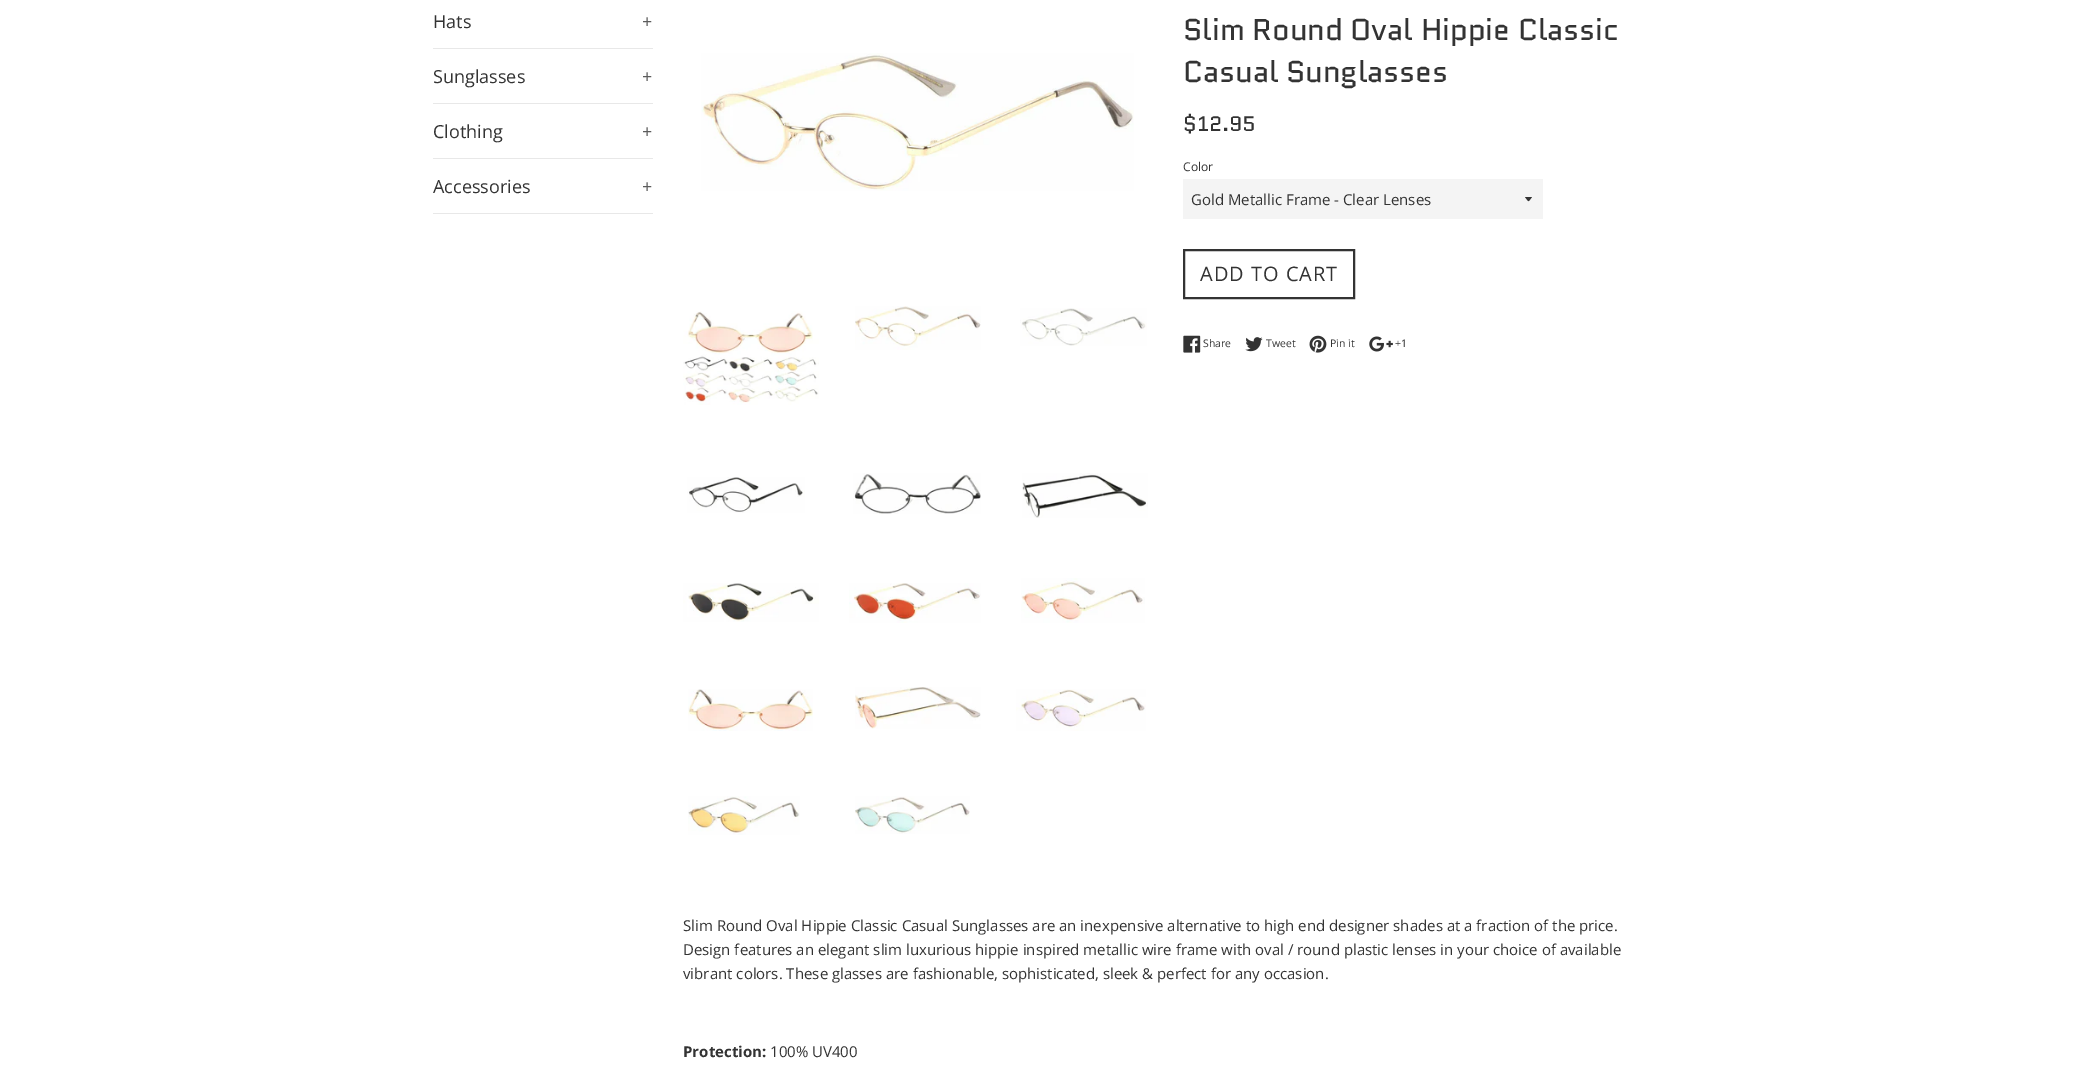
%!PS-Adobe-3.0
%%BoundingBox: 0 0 2085 1080
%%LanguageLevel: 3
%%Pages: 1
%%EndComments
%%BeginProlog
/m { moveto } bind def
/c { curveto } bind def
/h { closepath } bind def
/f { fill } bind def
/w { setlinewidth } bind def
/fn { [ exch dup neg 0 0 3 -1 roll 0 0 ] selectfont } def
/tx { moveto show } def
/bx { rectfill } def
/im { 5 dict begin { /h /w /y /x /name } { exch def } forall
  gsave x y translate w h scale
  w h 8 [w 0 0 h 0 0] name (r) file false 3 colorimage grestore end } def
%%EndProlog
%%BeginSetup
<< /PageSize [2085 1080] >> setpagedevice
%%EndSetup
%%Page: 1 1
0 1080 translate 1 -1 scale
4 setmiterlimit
1 setgray
0 0 2085 1080 bx
0.91 setgray
433 48 220 1 bx
/OpenSans-Regular 18 fn
0.2 setgray
(Hats) 433 28 tx
0.361 setgray
(+) 642 28 tx
0.91 setgray
433 103 220 1 bx
0.2 setgray
(Sunglasses) 433 83 tx
0.361 setgray
(+) 642 83 tx
0.91 setgray
433 158 220 1 bx
0.2 setgray
(Clothing) 433 138 tx
0.361 setgray
(+) 642 138 tx
0.91 setgray
433 213 220 1 bx
0.2 setgray
(Accessories) 433 193 tx
0.361 setgray
(+) 642 193 tx
(image0.raw) 701 53 433 138 im
(image1.raw) 683 311 136 94 im
(image2.raw) 855 306 126 44 im
(image3.raw) 1020 308 127 38 im
(image4.raw) 687 477 118 36 im
(image5.raw) 853 473 128 41 im
(image6.raw) 1022 473 126 45 im
(image7.raw) 683 583 136 39 im
(image8.raw) 849 583 132 40 im
(image9.raw) 1021 578 124 45 im
(image10.raw) 688 689 125 42 im
(image11.raw) 855 687 126 42 im
(image12.raw) 1016 689 130 42 im
(image13.raw) 688 796 112 39 im
(image14.raw) 855 796 115 38 im
/Quantico-Regular 30 fn
0.2 setgray
(Slim Round Oval Hippie Classic) 1183 40 tx
(Casual Sunglasses) 1183 82 tx
/Quantico-Regular 21 fn
($12.95) 1183 131 tx
/OpenSans-Regular 12 fn
(Color) 1183 171 tx
0.957 setgray
1183 179 360 40 bx
0.2 setgray
1525 197 m 1529.5 202.5 1527.5 202.5 1532 197 c h f
/OpenSans-Regular 15 fn
(Gold Metallic Frame - Clear Lenses) 1191 205 tx
2 w
1184 250 170 48 rectstroke
/OpenSans-Regular 20 fn
1200 281 m 1 0 (ADD TO CART) ashow
(image15.raw) 1183 335 18 18 im
/OpenSans-Regular 10.5 fn
(Share) 1203 347 tx
(image16.raw) 1245 337 18 15 im
(Tweet) 1266 347 tx
(image17.raw) 1309 335 18 18 im
(Pin it) 1330 347 tx
(image18.raw) 1369 336 24 16 im
(+1) 1395 347 tx
/OpenSans-Regular 15 fn
(Slim Round Oval Hippie Classic Casual Sunglasses are an inexpensive alternative to high end designer shades at a fraction of the price.) 683 931 tx
(Design features an elegant slim luxurious hippie inspired metallic wire frame with oval / round plastic lenses in your choice of available) 683 955 tx
(vibrant colors. These glasses are fashionable, sophisticated, sleek & perfect for any occasion.) 683 979 tx
/OpenSans-Bold 15 fn
(Protection:) 683 1057 tx
/OpenSans-Regular 15 fn
(100% UV400) 770 1057 tx
showpage
%%EOF
